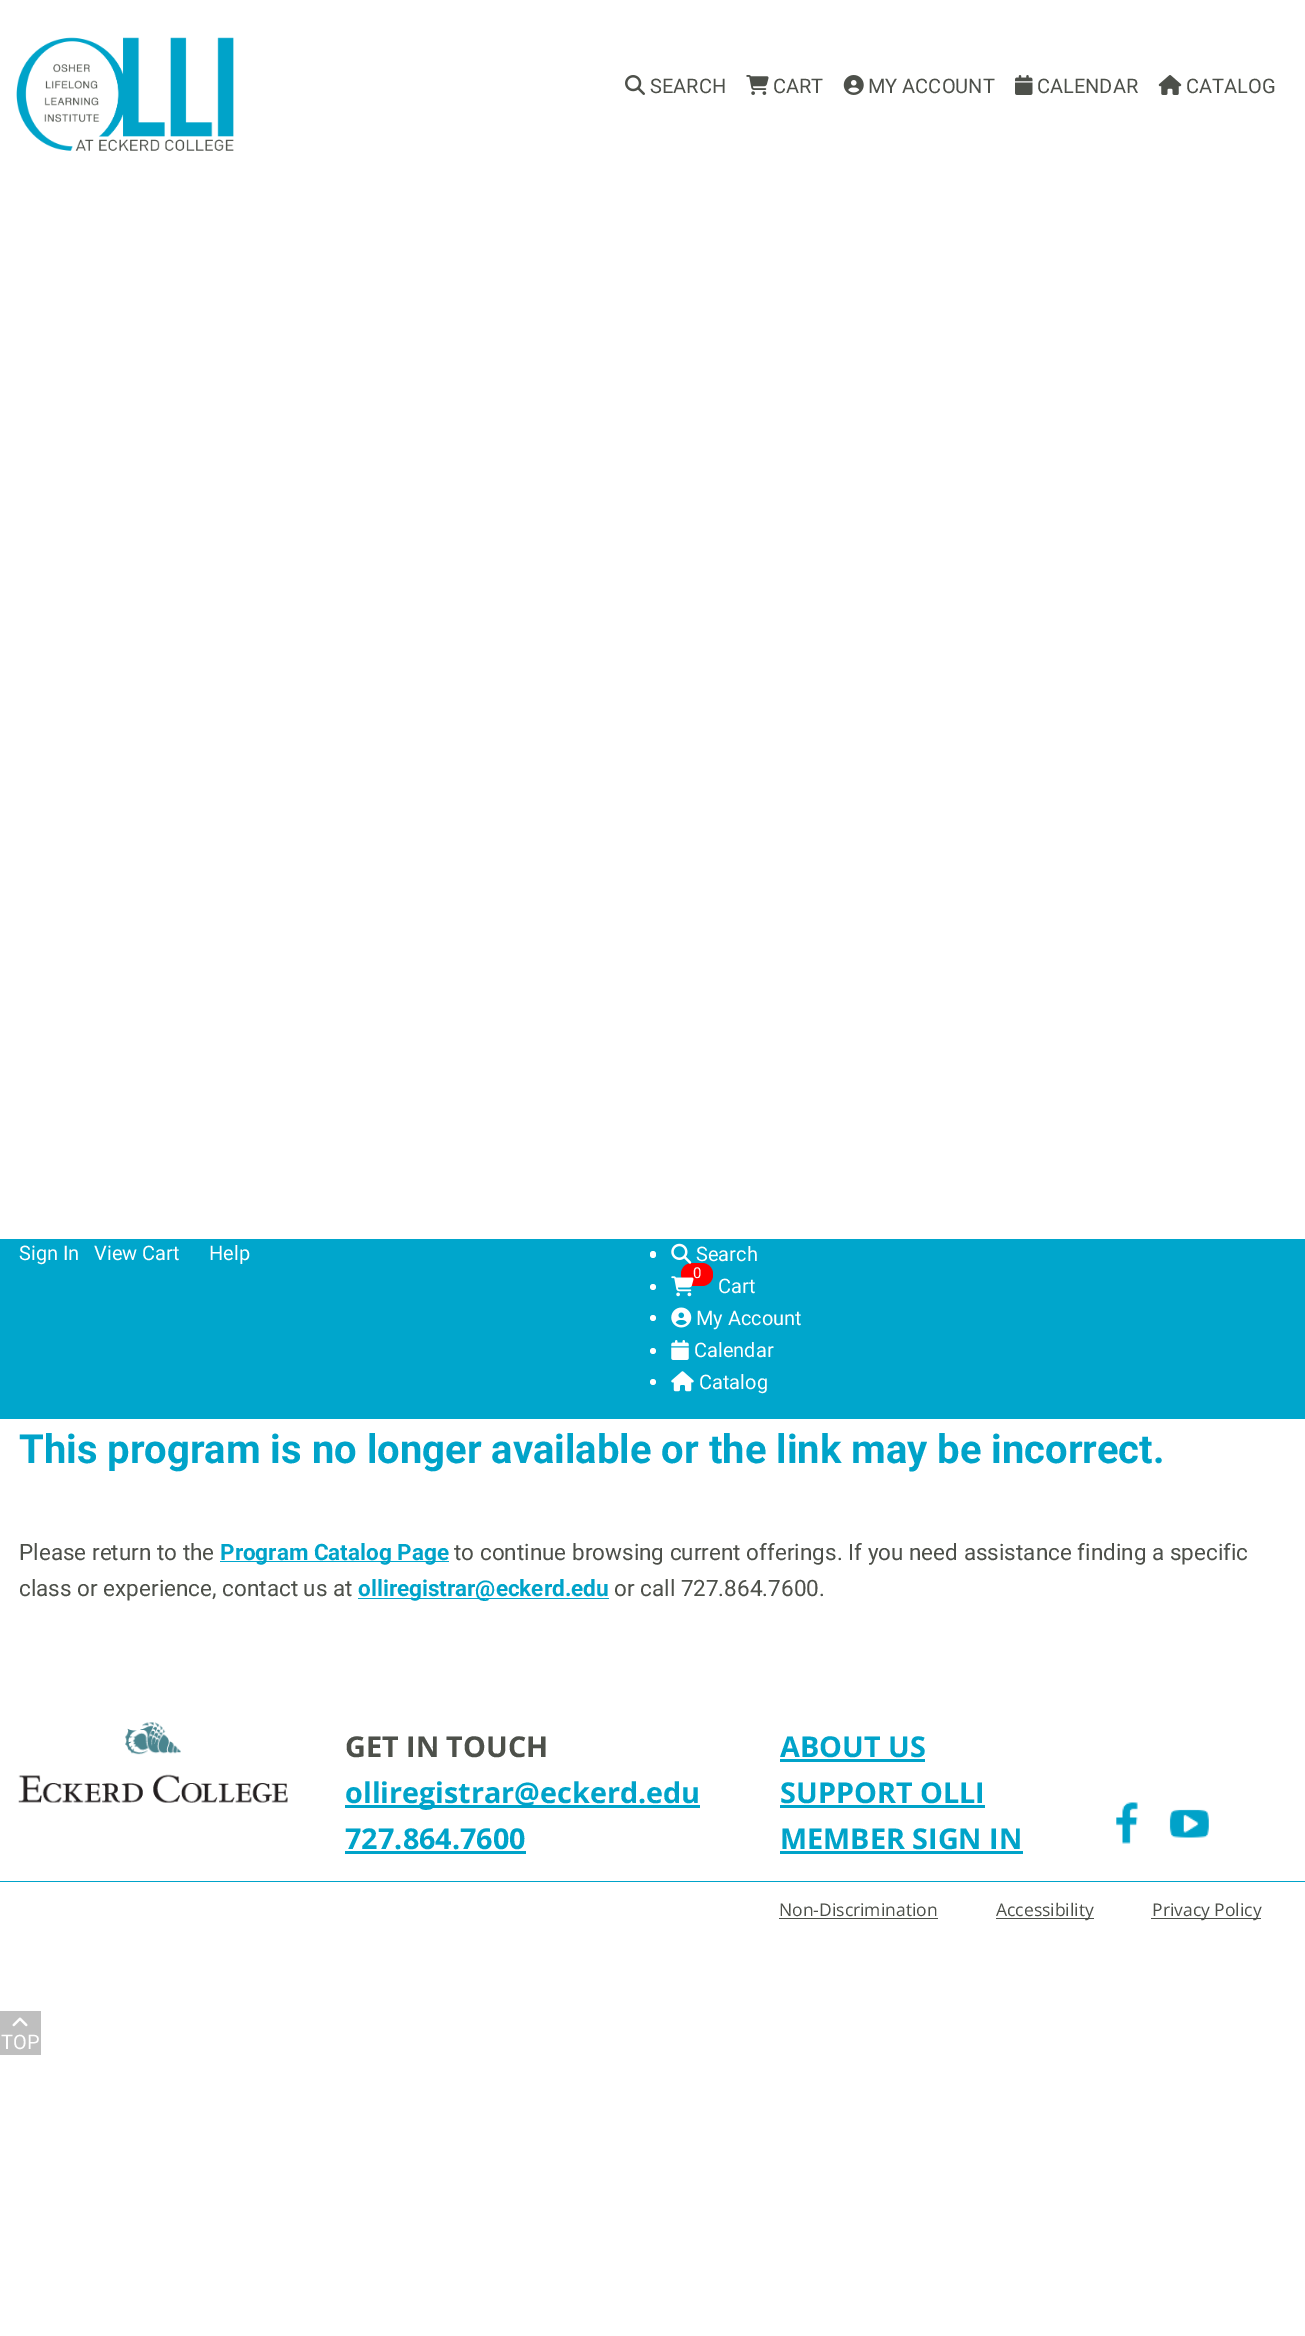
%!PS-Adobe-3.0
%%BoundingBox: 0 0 1305 2336
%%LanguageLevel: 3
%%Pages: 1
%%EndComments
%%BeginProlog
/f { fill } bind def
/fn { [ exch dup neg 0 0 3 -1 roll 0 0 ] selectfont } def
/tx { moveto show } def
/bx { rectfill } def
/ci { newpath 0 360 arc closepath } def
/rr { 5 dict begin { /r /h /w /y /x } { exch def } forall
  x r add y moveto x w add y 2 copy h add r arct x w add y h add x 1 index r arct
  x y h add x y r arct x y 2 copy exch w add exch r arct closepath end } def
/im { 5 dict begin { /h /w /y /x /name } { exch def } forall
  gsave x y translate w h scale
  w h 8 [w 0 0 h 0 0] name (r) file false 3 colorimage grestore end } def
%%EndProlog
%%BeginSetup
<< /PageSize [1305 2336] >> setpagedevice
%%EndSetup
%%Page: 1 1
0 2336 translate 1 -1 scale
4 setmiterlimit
1 setgray
0 0 1305 2336 bx
(image0.raw) 16 37 218 114 im
(image1.raw) 625 75 20 20 im
/Roboto-Regular 20 fn
0.302 0.314 0.29 setrgbcolor
(SEARCH) 650 93 tx
(image2.raw) 746 75 23 20 im
(CART) 773 93 tx
(image3.raw) 843 75 21 20 im
(MY ACCOUNT) 868 93 tx
(image4.raw) 1015 75 18 20 im
(CALENDAR) 1037 93 tx
(image5.raw) 1158 75 24 20 im
(CATALOG) 1186 93 tx
0 0.651 0.8 setrgbcolor
0 1239 1305 180 bx
1 setgray
(Sign In) 19 1260 tx
(View Cart) 94 1260 tx
(Help) 209 1260 tx
650 1251 6 7 3 rr f
1 0 0 setrgbcolor
681 1263 32 23 11 rr f
(image6.raw) 671 1243 21 21 im
1 setgray
(Search) 696 1261 tx
653 1287 3 ci f
/Roboto-Regular 15 fn
(0) 693 1278 tx
(image7.raw) 671 1276 23 21 im
/Roboto-Regular 20 fn
(Cart) 718 1293 tx
653 1318 3 ci f
(image8.raw) 671 1307 21 21 im
(My Account) 696 1325 tx
653 1351 3 ci f
(image9.raw) 671 1340 18 20 im
(Calendar) 694 1357 tx
653 1382 3 ci f
(image10.raw) 671 1371 23 21 im
(Catalog) 699 1389 tx
/Roboto-Bold 40 fn
0 0.639 0.788 setrgbcolor
(This program is no longer available or the link may be incorrect.) 19 1463 tx
/Roboto-Regular 22.5 fn
0.302 0.314 0.29 setrgbcolor
(Please return to the) 19 1560 tx
0 0.651 0.8 setrgbcolor
220 1561 229 1 bx
/Roboto-Bold 22.5 fn
0 0.639 0.788 setrgbcolor
(Program Catalog Page) 220 1560 tx
/Roboto-Regular 22.5 fn
0.302 0.314 0.29 setrgbcolor
(to continue browsing current offerings. If you need assistance finding a specific) 454 1560 tx
(class or experience, contact us at) 19 1596 tx
0 0.651 0.8 setrgbcolor
358 1598 251 1 bx
/Roboto-Bold 22.5 fn
0 0.639 0.788 setrgbcolor
(olliregistrar@eckerd.edu) 358 1596 tx
/Roboto-Regular 22.5 fn
0.302 0.314 0.29 setrgbcolor
(or call 727.864.7600.) 614 1596 tx
(image11.raw) 18 1722 270 81 im
/OpenSans-Bold 28.75 fn
(GET IN TOUCH) 345 1757 tx
0 0.639 0.788 setrgbcolor
345 1805 355 3 bx
(olliregistrar@eckerd.edu) 345 1803 tx
(727.864.7600) 345 1849 tx
345 1851 181 3 bx
(ABOUT US) 780 1757 tx
780 1759 145 3 bx
(SUPPORT OLLI) 780 1803 tx
780 1805 205 3 bx
(MEMBER SIGN IN) 780 1849 tx
780 1851 243 3 bx
(image12.raw) 1116 1802 22 42 im
(image13.raw) 1169 1809 40 29 im
0 1881 1305 1 bx
/OpenSans-Regular 17.5 fn
0.302 0.314 0.29 setrgbcolor
(Non-Discrimination) 779 1916 tx
0.298 0.314 0.29 setrgbcolor
779 1918 159 1 bx
996 1918 98 1 bx
0.302 0.314 0.29 setrgbcolor
(Accessibility) 996 1916 tx
0.298 0.314 0.29 setrgbcolor
1151 1918 110 1 bx
0.302 0.314 0.29 setrgbcolor
(Privacy Policy) 1152 1916 tx
0.749 setgray
0 2011 41 44 bx
(image14.raw) 12 2017 16 10 im
/Roboto-Regular 20 fn
1 setgray
(TOP) 1 2049 tx
showpage
%%EOF
